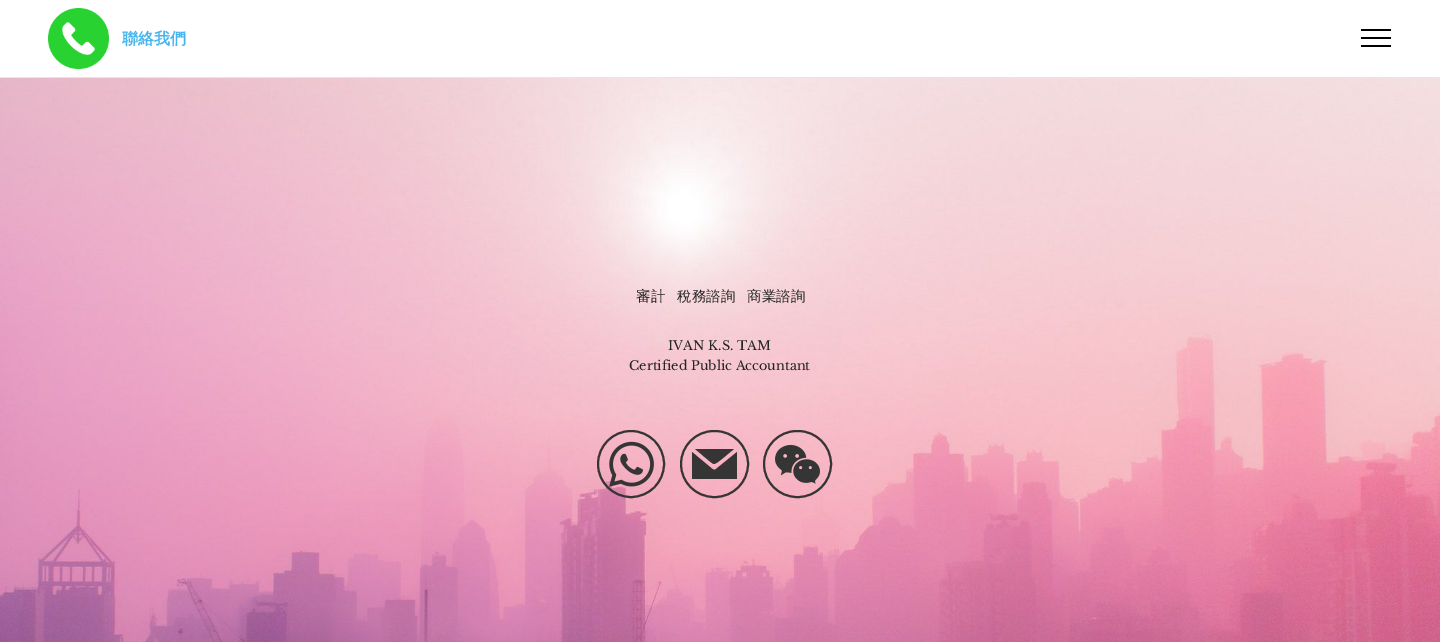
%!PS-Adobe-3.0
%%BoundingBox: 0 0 1440 642
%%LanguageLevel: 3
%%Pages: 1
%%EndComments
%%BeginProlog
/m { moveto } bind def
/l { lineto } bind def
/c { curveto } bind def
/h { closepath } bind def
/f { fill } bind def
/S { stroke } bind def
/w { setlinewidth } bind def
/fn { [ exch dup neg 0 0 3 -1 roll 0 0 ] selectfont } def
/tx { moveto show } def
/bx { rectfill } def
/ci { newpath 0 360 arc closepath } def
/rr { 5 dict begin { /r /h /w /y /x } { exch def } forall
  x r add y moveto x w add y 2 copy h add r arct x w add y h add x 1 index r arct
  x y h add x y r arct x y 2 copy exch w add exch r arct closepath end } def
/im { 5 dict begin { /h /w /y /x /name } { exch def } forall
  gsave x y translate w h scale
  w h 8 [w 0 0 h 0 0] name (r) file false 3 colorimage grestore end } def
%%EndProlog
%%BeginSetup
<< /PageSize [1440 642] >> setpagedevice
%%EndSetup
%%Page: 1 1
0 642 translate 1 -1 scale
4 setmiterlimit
1 setgray
0 0 1440 642 bx
0.902 setgray
0 77 1440 1 bx
(image0.raw) 48 8 61 61 im
/WenQuanYiZenHei-Bold 16 fn
0.278 0.71 0.929 setrgbcolor
(聯絡我們) 122 44 tx
0 setgray
1361 29 30 2 bx
1361 37 30 2 bx
1361 45 30 2 bx
(image1.raw) 0 78 1440 564 im
/WenQuanYiZenHei-Medium 14.5 fn
0.137 setgray
(審計) 636 301 tx
(稅務諮詢) 677 301 tx
(商業諮詢) 747 301 tx
/LibreBaskerville-Regular 12.75 fn
(IVAN K.S. TAM) 668 350 tx
(Certified Public Accountant) 629 370 tx
0.208 setgray
2 w
631 464 33 ci S
(image2.raw) 609 441 45 46 im
681 431 67 66 33 rr S
716 469 m 714 471 711 468 710 467 c 692 452 l 692 479 l 737 479 l 737 452 l h 714 464 m 717 464 731 451 734 449 c 695 449 l 698 451 712 464 714 464 c h f
764 431 67 66 33 rr S
(image3.raw) 775 444 45 40 im
showpage
%%EOF
